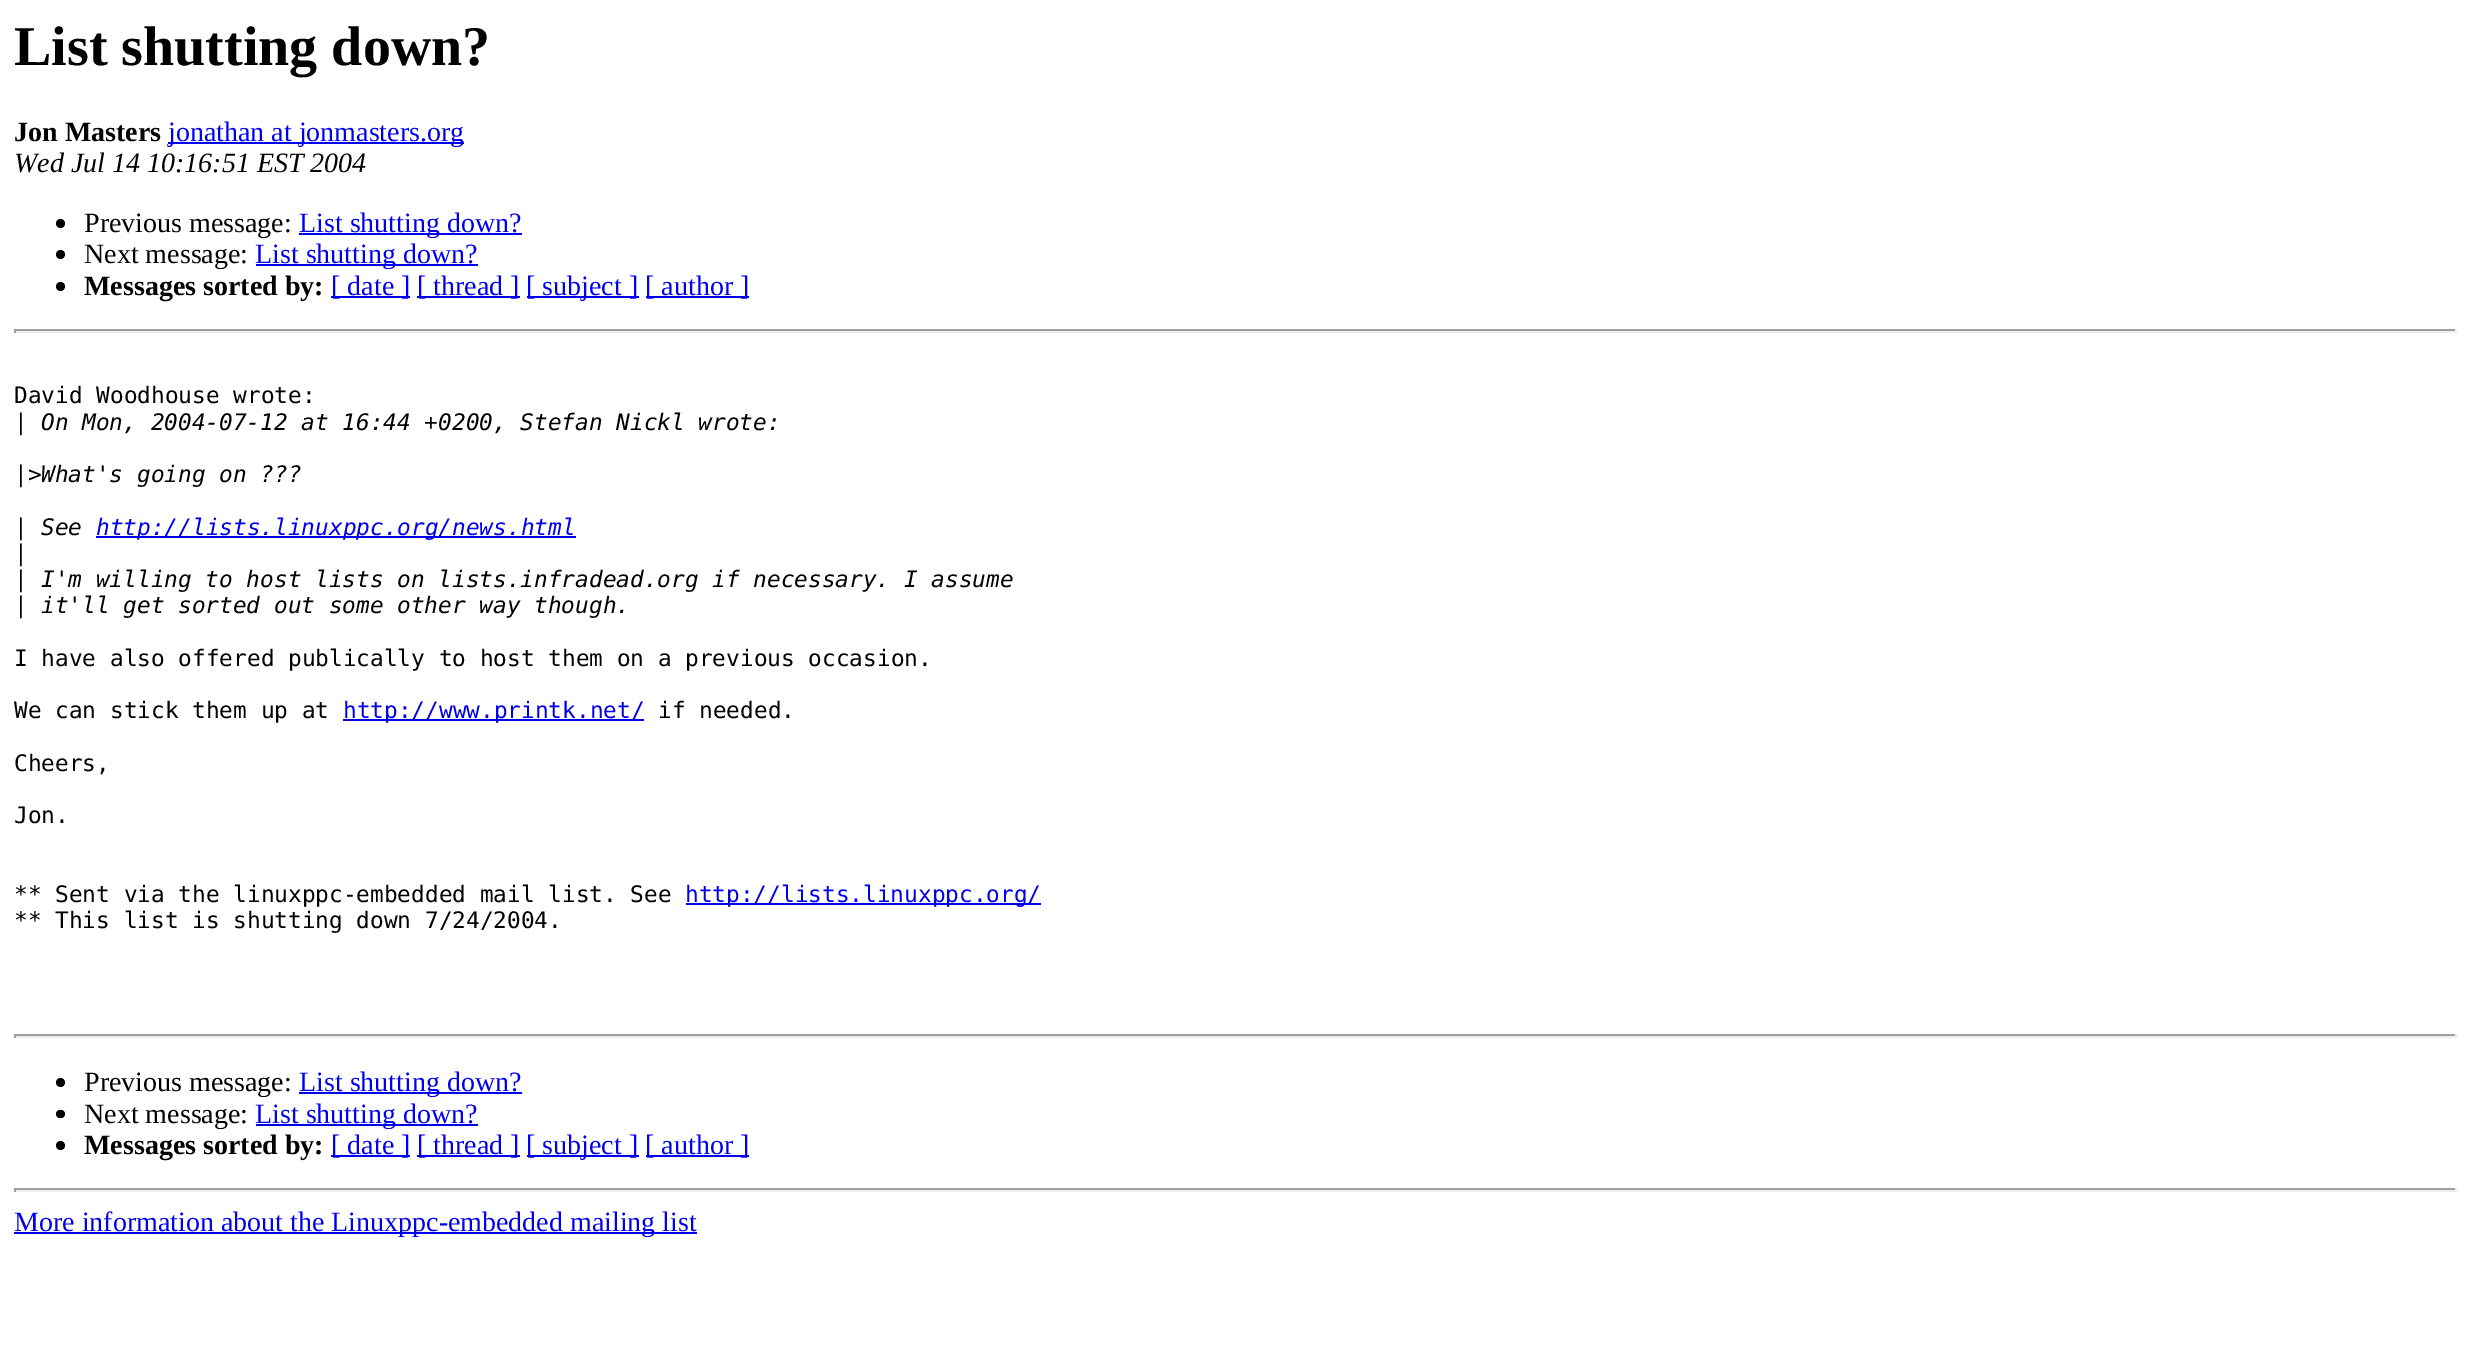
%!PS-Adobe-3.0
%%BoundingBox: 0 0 2470 1358
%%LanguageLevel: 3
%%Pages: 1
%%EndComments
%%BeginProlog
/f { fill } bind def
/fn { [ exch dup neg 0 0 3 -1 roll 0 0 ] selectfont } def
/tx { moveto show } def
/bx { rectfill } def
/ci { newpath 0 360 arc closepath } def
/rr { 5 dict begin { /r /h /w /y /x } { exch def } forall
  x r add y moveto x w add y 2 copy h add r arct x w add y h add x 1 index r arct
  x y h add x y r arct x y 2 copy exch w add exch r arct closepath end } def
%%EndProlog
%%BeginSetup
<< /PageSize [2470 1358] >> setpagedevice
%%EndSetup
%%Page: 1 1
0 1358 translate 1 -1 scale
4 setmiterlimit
1 setgray
0 0 2470 1358 bx
/LiberationSerif-Bold 56 fn
0 setgray
(List shutting down?) 14 65 tx
/LiberationSerif-Bold 28 fn
(Jon Masters) 14 141 tx
0 0 0.933 setrgbcolor
168 142 296 2 bx
/LiberationSerif-Regular 28 fn
(jonathan at jonmasters.org) 168 141 tx
/LiberationSerif-Italic 28 fn
0 setgray
(Wed Jul 14 10:16:51 EST 2004) 14 172 tx
60.5 223.5 4.5 ci f
/LiberationSerif-Regular 28 fn
(Previous message:) 84 232 tx
0 0 0.933 setrgbcolor
299 233 223 2 bx
(List shutting down?) 299 232 tx
0 setgray
60.5 254.5 4.5 ci f
(Next message:) 84 263 tx
0 0 0.933 setrgbcolor
256 264 222 2 bx
(List shutting down?) 255 263 tx
0 setgray
60.5 286.5 4.5 ci f
/LiberationSerif-Bold 28 fn
(Messages sorted by:) 84 295 tx
0 0 0.933 setrgbcolor
331 296 79 2 bx
/LiberationSerif-Regular 28 fn
([ date ]) 331 295 tx
417 296 103 2 bx
([ thread ]) 417 295 tx
527 296 112 2 bx
([ subject ]) 526 295 tx
646 296 103 2 bx
([ author ]) 645 295 tx
0.624 setgray
14 329 2443 2 bx
0.933 setgray
2455 329 2 4 bx
14 331 2443 2 bx
0.624 setgray
14 329 2 4 bx
/DejaVuSansMono-Regular 22.75 fn
0 setgray
(David Woodhouse wrote:) 14 403 tx
(|) 14 430 tx
/DejaVuSansMono-Italic 22.75 fn
(On Mon, 2004-07-12 at 16:44 +0200, Stefan Nickl wrote:) 41 430 tx
/DejaVuSansMono-Regular 22.75 fn
(|>) 14 482 tx
/DejaVuSansMono-Italic 22.75 fn
(What's going on ???) 41 482 tx
/DejaVuSansMono-Regular 22.75 fn
(|) 14 535 tx
/DejaVuSansMono-Italic 22.75 fn
(See) 41 535 tx
0 0 0.933 setrgbcolor
96 536 480 2 bx
(http://lists.linuxppc.org/news.html) 96 535 tx
/DejaVuSansMono-Regular 22.75 fn
0 setgray
(|) 14 561 tx
(|) 14 587 tx
/DejaVuSansMono-Italic 22.75 fn
(I'm willing to host lists on lists.infradead.org if necessary. I assume) 41 587 tx
/DejaVuSansMono-Regular 22.75 fn
(|) 14 613 tx
/DejaVuSansMono-Italic 22.75 fn
(it'll get sorted out some other way though.) 41 613 tx
/DejaVuSansMono-Regular 22.75 fn
(I have also offered publically to host them on a previous occasion.) 14 666 tx
(We can stick them up at) 14 718 tx
0 0 0.933 setrgbcolor
343 719 301 2 bx
(http://www.printk.net/) 343 718 tx
0 setgray
(if needed.) 658 718 tx
(Cheers,) 14 771 tx
(Jon.) 14 823 tx
(** Sent via the linuxppc-embedded mail list. See) 14 902 tx
0 0 0.933 setrgbcolor
686 903 355 2 bx
(http://lists.linuxppc.org/) 685 902 tx
0 setgray
(** This list is shutting down 7/24/2004.) 14 928 tx
0.624 setgray
14 1034 2443 2 bx
0.933 setgray
2455 1034 2 4 bx
14 1036 2443 2 bx
0.624 setgray
14 1034 2 4 bx
0 setgray
60.5 1082.5 4.5 ci f
/LiberationSerif-Regular 28 fn
(Previous message:) 84 1091 tx
0 0 0.933 setrgbcolor
299 1092 223 2 bx
(List shutting down?) 299 1091 tx
0 setgray
56 1110 9 8 4 rr f
(Next message:) 84 1123 tx
0 0 0.933 setrgbcolor
256 1124 222 2 bx
(List shutting down?) 255 1123 tx
0 setgray
60.5 1145.5 4.5 ci f
/LiberationSerif-Bold 28 fn
(Messages sorted by:) 84 1154 tx
0 0 0.933 setrgbcolor
331 1155 79 2 bx
/LiberationSerif-Regular 28 fn
([ date ]) 331 1154 tx
417 1155 103 2 bx
([ thread ]) 417 1154 tx
527 1155 112 2 bx
([ subject ]) 526 1154 tx
646 1155 103 2 bx
([ author ]) 645 1154 tx
0.624 setgray
14 1188 2443 2 bx
0.933 setgray
2455 1188 2 4 bx
14 1190 2443 2 bx
0.624 setgray
14 1188 2 4 bx
0 0 0.933 setrgbcolor
14 1232 683 2 bx
(More information about the Linuxppc-embedded mailing list) 14 1231 tx
showpage
%%EOF
